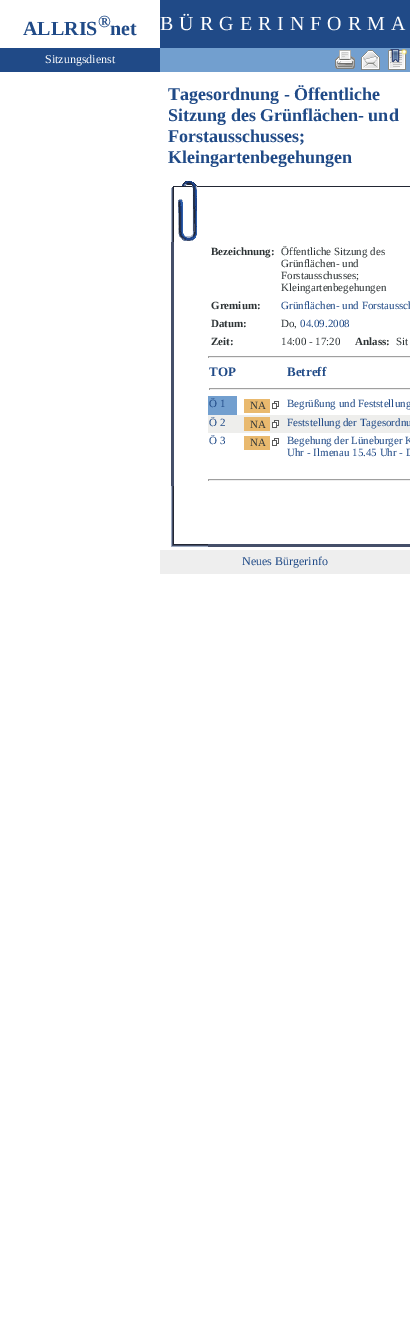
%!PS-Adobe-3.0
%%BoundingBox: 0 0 410 1332
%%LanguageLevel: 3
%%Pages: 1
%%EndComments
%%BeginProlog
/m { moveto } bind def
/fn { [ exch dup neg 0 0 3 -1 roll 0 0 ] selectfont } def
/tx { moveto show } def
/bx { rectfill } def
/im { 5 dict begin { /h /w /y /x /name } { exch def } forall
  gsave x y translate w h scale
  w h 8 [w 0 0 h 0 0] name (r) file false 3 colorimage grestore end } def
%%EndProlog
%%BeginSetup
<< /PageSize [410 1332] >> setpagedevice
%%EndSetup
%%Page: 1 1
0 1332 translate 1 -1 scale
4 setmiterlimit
1 setgray
0 0 410 1332 bx
/LiberationSerif-Bold 20 fn
0.125 0.29 0.529 setrgbcolor
(ALLRIS) 23 35 tx
/LiberationSerif-Bold 17 fn
(®) 98 27 tx
/LiberationSerif-Bold 20 fn
(net) 110 35 tx
0 48 160 24 bx
/LiberationSerif-Regular 12 fn
1 setgray
(Sitzungsdienst) 45 63 tx
0.125 0.29 0.529 setrgbcolor
160 0 250 48 bx
/LiberationSerif-Regular 20 fn
1 setgray
160 30 m 6 0 (BÜRGERINFORMA) ashow
0.447 0.624 0.812 setrgbcolor
160 48 250 24 bx
(image0.raw) 335 50 20 19 im
(image1.raw) 361 50 19 20 im
(image2.raw) 388 49 19 21 im
/LiberationSerif-Bold 18 fn
0.125 0.29 0.529 setrgbcolor
(Tagesordnung - Öffentliche) 168 100 tx
(Sitzung des Grünflächen- und) 168 121 tx
(Forstausschusses;) 168 142 tx
(Kleingartenbegehungen) 168 163 tx
(image3.raw) 171 181 37 61 im
0.133 0.153 0.204 setrgbcolor
208 186 202 1 bx
0.271 0.31 0.412 setrgbcolor
171 242 3 244 bx
/LiberationSerif-Bold 11 fn
0.18 0.204 0.212 setrgbcolor
(Bezeichnung:) 211 255 tx
/LiberationSerif-Regular 11 fn
(Öffentliche Sitzung des) 281 255 tx
(Grünflächen- und) 281 267 tx
(Forstausschusses;) 281 279 tx
(Kleingartenbegehungen) 281 291 tx
/LiberationSerif-Bold 11 fn
(Gremium:) 211 309 tx
/LiberationSerif-Regular 11 fn
0.125 0.29 0.529 setrgbcolor
(Grünflächen- und Forstaussch) 281 309 tx
/LiberationSerif-Bold 11 fn
0.18 0.204 0.212 setrgbcolor
(Datum:) 211 327 tx
/LiberationSerif-Regular 11 fn
(Do,) 281 327 tx
0.125 0.29 0.529 setrgbcolor
(04.09.2008) 300 327 tx
/LiberationSerif-Bold 11 fn
0.18 0.204 0.212 setrgbcolor
(Zeit:) 211 345 tx
/LiberationSerif-Regular 11 fn
(14:00 - 17:20) 281 345 tx
/LiberationSerif-Bold 11 fn
(Anlass:) 355 345 tx
/LiberationSerif-Regular 11 fn
(Sit) 396 345 tx
0.624 setgray
208 356 202 1 bx
0.933 setgray
208 357 202 1 bx
0.624 setgray
208 356 1 2 bx
/LiberationSerif-Bold 13 fn
0.125 0.29 0.529 setrgbcolor
(TOP) 209 376 tx
(Betreff) 287 376 tx
0.624 setgray
209 388 201 1 bx
0.933 setgray
209 389 201 1 bx
0.624 setgray
209 388 1 2 bx
0.447 0.624 0.812 setrgbcolor
208 396 29 19 bx
/LiberationSerif-Regular 11 fn
0.125 0.29 0.529 setrgbcolor
(Ö 1) 209 407 tx
0.914 0.725 0.431 setrgbcolor
244 399 26 14 bx
0.18 0.204 0.212 setrgbcolor
(NA) 250 409 tx
(image4.raw) 272 401 7 8 im
0.125 0.29 0.529 setrgbcolor
(Begrüßung und Feststellung) 287 407 tx
0.933 0.933 0.925 setrgbcolor
208 415 202 18 bx
0.125 0.29 0.529 setrgbcolor
(Ö 2) 209 426 tx
0.914 0.725 0.431 setrgbcolor
244 417 26 14 bx
0.18 0.204 0.212 setrgbcolor
(NA) 250 428 tx
(image5.raw) 272 420 7 8 im
0.125 0.29 0.529 setrgbcolor
(Feststellung der Tagesordnu) 287 426 tx
(Ö 3) 209 444 tx
0.914 0.725 0.431 setrgbcolor
244 436 26 14 bx
0.18 0.204 0.212 setrgbcolor
(NA) 250 446 tx
(image4.raw) 272 438 7 8 im
0.125 0.29 0.529 setrgbcolor
(Begehung der Lüneburger K) 287 444 tx
(Uhr - Ilmenau 15.45 Uhr - D) 287 456 tx
0.624 setgray
208 479 202 1 bx
0.933 setgray
208 480 202 1 bx
0.624 setgray
208 479 1 2 bx
(image6.raw) 171 486 37 61 im
0.271 0.31 0.412 setrgbcolor
208 544 202 3 bx
0.933 setgray
160 550 250 24 bx
/LiberationSerif-Regular 12 fn
0.125 0.29 0.529 setrgbcolor
(Neues Bürgerinfo) 242 565 tx
showpage
%%EOF
